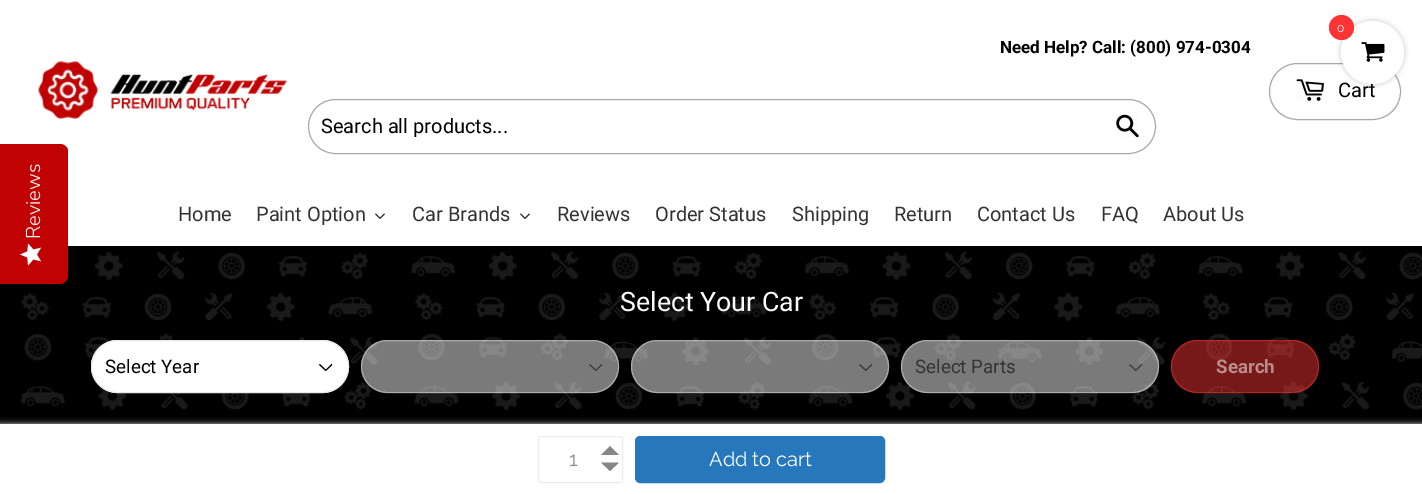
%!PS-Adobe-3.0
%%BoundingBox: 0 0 1422 494
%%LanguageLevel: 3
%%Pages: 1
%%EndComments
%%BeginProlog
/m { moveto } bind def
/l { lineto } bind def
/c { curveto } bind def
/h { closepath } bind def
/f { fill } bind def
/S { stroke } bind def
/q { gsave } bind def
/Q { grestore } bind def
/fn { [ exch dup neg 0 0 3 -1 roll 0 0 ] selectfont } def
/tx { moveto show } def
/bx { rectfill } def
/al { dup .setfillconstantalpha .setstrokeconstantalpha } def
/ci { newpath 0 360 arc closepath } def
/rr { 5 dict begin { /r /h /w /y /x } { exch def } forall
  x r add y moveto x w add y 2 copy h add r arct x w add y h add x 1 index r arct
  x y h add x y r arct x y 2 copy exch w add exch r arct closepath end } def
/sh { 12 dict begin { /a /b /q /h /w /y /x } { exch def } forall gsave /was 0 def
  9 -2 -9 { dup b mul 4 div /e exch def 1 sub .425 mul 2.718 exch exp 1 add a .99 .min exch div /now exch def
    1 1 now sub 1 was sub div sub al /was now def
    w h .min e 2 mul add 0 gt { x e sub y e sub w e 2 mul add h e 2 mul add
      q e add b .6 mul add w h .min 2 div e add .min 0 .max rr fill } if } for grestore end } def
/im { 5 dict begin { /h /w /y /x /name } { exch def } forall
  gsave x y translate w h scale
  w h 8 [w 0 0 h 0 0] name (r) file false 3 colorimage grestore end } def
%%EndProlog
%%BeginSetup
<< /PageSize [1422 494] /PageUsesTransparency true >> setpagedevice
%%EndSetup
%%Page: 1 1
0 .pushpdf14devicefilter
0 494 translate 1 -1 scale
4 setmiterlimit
1 setgray
0 0 1422 494 bx
0.663 setgray
1269.5 63.5 131 56 28 rr S
0.012 setgray
1340 20 65 65 32.5 2.5 0.15 sh
/Roboto-Regular 20 fn
0 setgray
(Cart) 1338 97 tx
1 setgray
1372.5 52.5 31.5 ci f
1 0.2 0.2 setrgbcolor
1341.5 27.5 12.5 ci f
/Raleway-Thin 12 fn
1 setgray
(0) 1337 32 tx
(image0.raw) 1361 42 24 20 im
(image6.raw) 0 246 1422 178 im
0.757 0.008 0.008 setrgbcolor
0 284 m 0 144 l 60 144 l 64 144 68 147 68 151 c 68 276 l 68 280 64 284 60 284 c h f
/NunitoSans-Light 20 fn
1 setgray
q 40 239 translate -90 rotate 0 0 m (Reviews) show Q
(image1.raw) 20 243 22 23 im
(image2.raw) 38 61 249 58 im
/Roboto-Bold 17 fn
0 setgray
(Need Help? Call: \(800\) 974-0304) 1000 53 tx
0.663 setgray
308.5 99.5 847 54 27 rr S
/Roboto-Regular 20 fn
0 setgray
(Search all products...) 321 133 tx
(image3.raw) 1116 114 23 24 im
(image4.raw) 1296 79 28 22 im
0.2 setgray
(Home) 178 221 tx
(Paint Option) 256 221 tx
(image5.raw) 375 213 10 6 im
(Car Brands) 412 221 tx
(image5.raw) 520 213 10 6 im
(Reviews) 557 221 tx
(Order Status) 655 221 tx
(Shipping) 792 221 tx
(Return) 894 221 tx
(Contact Us) 977 221 tx
(FAQ) 1101 221 tx
(About Us) 1163 221 tx
/Roboto-Regular 26.75 fn
1 setgray
(Select Your Car) 620 311 tx
91 340 258 53 26.5 rr f
(image7.raw) 319 363 14 9 im
0.91 0.914 0.922 setrgbcolor
91.5 340.5 257 52 26 rr S
/Roboto-Regular 18.75 fn
0 setgray
(Select Year) 105 373 tx
0.5 al
0.957 setgray
361 340 258 53 26.5 rr f
1 al
(image8.raw) 589 364 14 8 im
0.5 al
0.867 setgray
361.5 340.5 257 52 26 rr S
0.957 setgray
631 340 258 53 26.5 rr f
1 al
(image8.raw) 859 364 14 8 im
0.5 al
0.867 setgray
631.5 340.5 257 52 26 rr S
0.957 setgray
901 340 258 53 26.5 rr f
1 al
(image9.raw) 1129 364 14 8 im
0.5 al
0.867 setgray
901.5 340.5 257 52 26 rr S
1 al
0.2 setgray
(Select Parts) 915 373 tx
0.5 al
0.937 0.196 0.196 setrgbcolor
1171 340 148 53 26.5 rr f
1171.5 340.5 147 52 26 rr S
/Roboto-Bold 18.75 fn
1 al
0.733 0.549 0.549 setrgbcolor
(Search) 1216 373 tx
0.804 setgray
0 424 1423 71 0 3 1 sh
1 setgray
0 424 1422 70 bx
0.925 setgray
538.5 436.5 84 46 2 rr S
/Raleway-Thin 20 fn
0.525 setgray
(1) 569 466 tx
619 455 m 601 455 l 610 446 l h 601 462.5 m 619 462.5 l 610 471 l h f
0.153 0.467 0.737 setrgbcolor
635.5 436.5 249 46 4.5 rr q f Q
S
1 setgray
(Add to cart) 709 466 tx
.poppdf14devicefilter showpage
%%EOF
